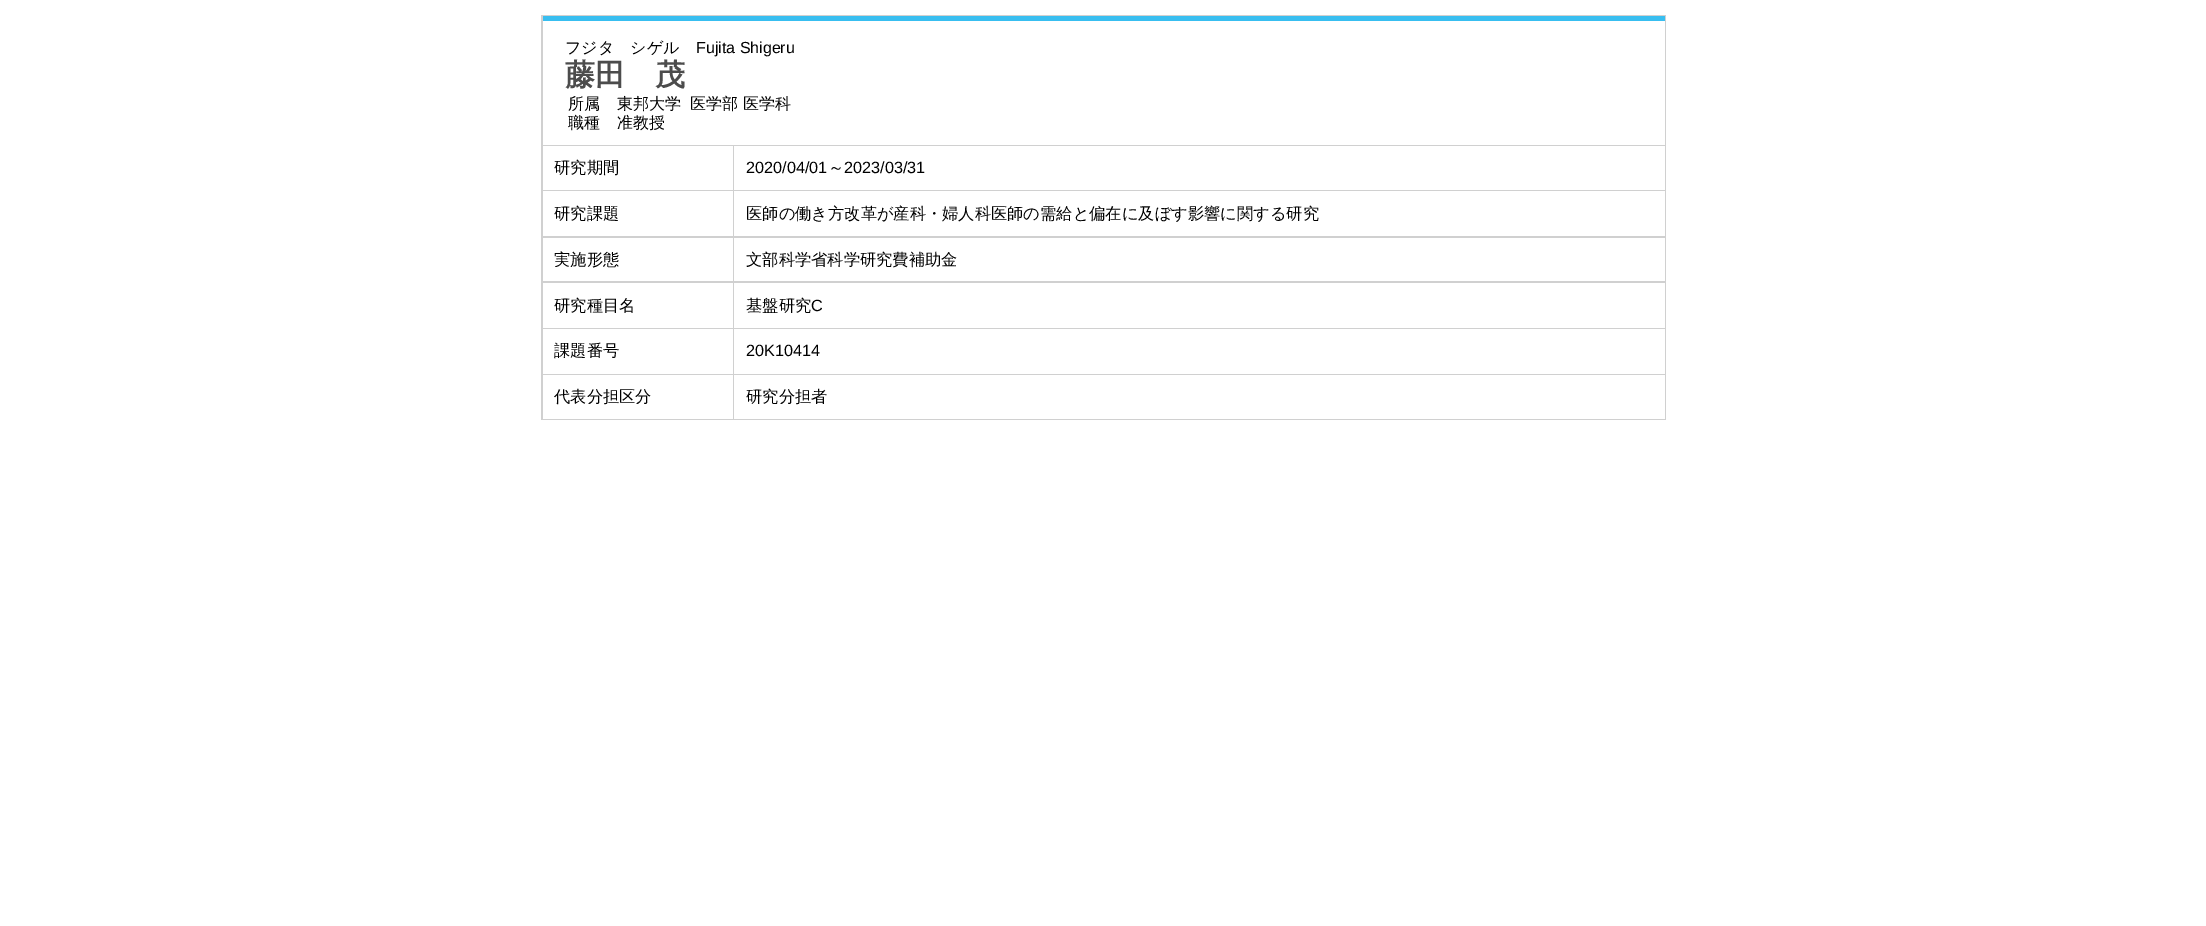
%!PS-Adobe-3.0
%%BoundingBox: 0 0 2206 926
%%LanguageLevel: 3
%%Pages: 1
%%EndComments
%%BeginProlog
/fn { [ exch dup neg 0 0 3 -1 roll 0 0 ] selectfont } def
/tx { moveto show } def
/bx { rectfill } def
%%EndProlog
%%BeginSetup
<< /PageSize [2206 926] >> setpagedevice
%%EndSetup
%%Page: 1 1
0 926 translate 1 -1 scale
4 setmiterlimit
1 setgray
0 0 2206 926 bx
0.816 setgray
541 15 1125 405 bx
1 setgray
543 21 1122 124 bx
0.22 0.745 0.941 setrgbcolor
543 16 1122 5 bx
/WenQuanYiZenHei-Medium 16 fn
0 setgray
(フジタ　シゲル) 565 53 tx
/LiberationSans-Regular 16 fn
(Fujita Shigeru) 696 53 tx
/WenQuanYiZenHei-Bold 30 fn
0.298 setgray
(藤田　茂) 565 85 tx
/WenQuanYiZenHei-Medium 16 fn
0 setgray
(所属) 568 109 tx
(東邦大学) 617 109 tx
(医学部 医学科) 690 109 tx
(職種) 568 128 tx
(准教授) 617 128 tx
1 setgray
543 146 190 44 bx
/WenQuanYiZenHei-Medium 16.25 fn
0 setgray
(研究期間) 554 173 tx
1 setgray
734 146 931 44 bx
/LiberationSans-Regular 16.25 fn
0 setgray
(2020/04/01) 746 173 tx
/WenQuanYiZenHei-Medium 16.25 fn
(～) 828 173 tx
/LiberationSans-Regular 16.25 fn
(2023/03/31) 844 173 tx
1 setgray
543 191 190 45 bx
/WenQuanYiZenHei-Medium 16.25 fn
0 setgray
(研究課題) 554 219 tx
1 setgray
734 191 931 45 bx
0 setgray
(医師の働き方改革が産科・婦人科医師の需給と偏在に及ぼす影響に関する研究) 746 219 tx
1 setgray
543 238 190 43 bx
0 setgray
(実施形態) 554 265 tx
1 setgray
734 238 931 43 bx
0 setgray
(文部科学省科学研究費補助金) 746 265 tx
1 setgray
543 283 190 45 bx
0 setgray
(研究種目名) 554 311 tx
1 setgray
734 283 931 45 bx
0 setgray
(基盤研究) 746 311 tx
/LiberationSans-Regular 16.25 fn
(C) 811 311 tx
1 setgray
543 329 190 45 bx
/WenQuanYiZenHei-Medium 16.25 fn
0 setgray
(課題番号) 554 356 tx
1 setgray
734 329 931 45 bx
/LiberationSans-Regular 16.25 fn
0 setgray
(20K10414) 746 356 tx
1 setgray
543 375 190 44 bx
/WenQuanYiZenHei-Medium 16.25 fn
0 setgray
(代表分担区分) 554 402 tx
1 setgray
734 375 931 44 bx
0 setgray
(研究分担者) 746 402 tx
showpage
%%EOF
